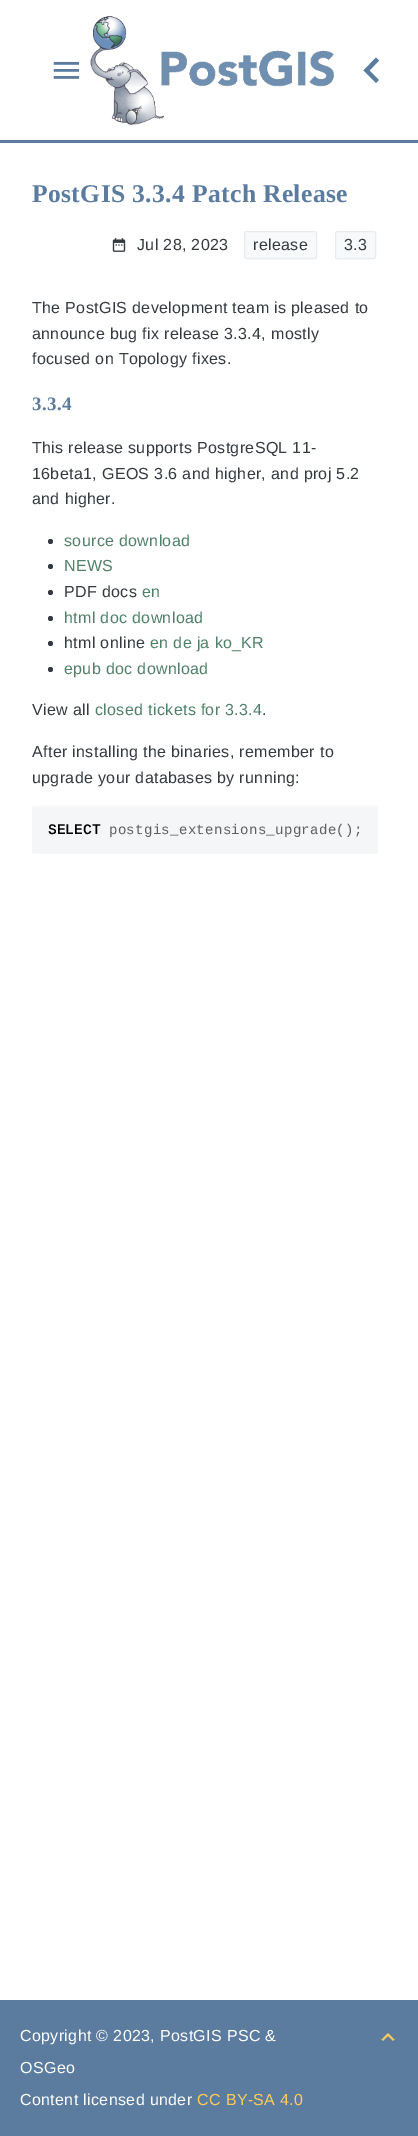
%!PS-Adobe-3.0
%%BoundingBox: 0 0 418 2136
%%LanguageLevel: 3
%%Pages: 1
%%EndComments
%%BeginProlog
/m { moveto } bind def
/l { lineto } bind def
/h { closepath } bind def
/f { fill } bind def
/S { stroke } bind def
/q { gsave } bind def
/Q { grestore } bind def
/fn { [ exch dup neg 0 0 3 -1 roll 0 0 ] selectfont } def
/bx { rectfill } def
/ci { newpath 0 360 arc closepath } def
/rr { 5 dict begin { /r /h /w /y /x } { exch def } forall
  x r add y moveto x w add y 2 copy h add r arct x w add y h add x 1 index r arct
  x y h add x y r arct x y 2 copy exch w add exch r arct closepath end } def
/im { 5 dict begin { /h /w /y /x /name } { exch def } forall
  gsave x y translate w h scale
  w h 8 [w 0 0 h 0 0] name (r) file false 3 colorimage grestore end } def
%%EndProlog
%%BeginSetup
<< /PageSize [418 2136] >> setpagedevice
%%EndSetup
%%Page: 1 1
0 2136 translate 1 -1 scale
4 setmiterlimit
1 setgray
0 0 418 2136 bx
0.357 0.482 0.624 setrgbcolor
0 140 418 3 bx
(image0.raw) 53 61 27 18 im
(image1.raw) 90 16 244 109 im
379 80 m 376 83 l 363.5 70.5 l 376 57.5 l 379 60.5 l 369.5 70.5 l h f
/LiberationSerif-Bold 25.6 fn
32 202 m 0.35 0 (PostGIS 3.3.4 Patch Release) ashow
(image2.raw) 112 238 14 14 im
/LiberationSans-Regular 16 fn
0.204 0.227 0.251 setrgbcolor
137 250 m 0.35 0 (Jul 28, 2023) ashow
0.973 0.976 0.98 setrgbcolor
244.5 231.5 72 27 2 rr q f Q
0.914 0.925 0.937 setrgbcolor
S
0.204 0.227 0.251 setrgbcolor
253 250 m 0.35 0 (release) ashow
0.973 0.976 0.98 setrgbcolor
335.5 231.5 40 27 2 rr q f Q
0.914 0.925 0.937 setrgbcolor
S
0.204 0.227 0.251 setrgbcolor
344 250 m 0.35 0 (3.3) ashow
32 313 m 0.35 0 (The PostGIS development team is pleased to) ashow
32 339 m 0.35 0 (announce bug fix release 3.3.4, mostly) ashow
32 364 m 0.35 0 (focused on Topology fixes.) ashow
/LiberationSerif-Bold 19 fn
0.357 0.482 0.624 setrgbcolor
32 410 m 0.35 0 (3.3.4) ashow
/LiberationSans-Regular 16 fn
0.204 0.227 0.251 setrgbcolor
32 453 m 0.35 0 (This release supports PostgreSQL 11-) ashow
32 479 m 0.35 0 (16beta1, GEOS 3.6 and higher, and proj 5.2) ashow
32 504 m 0.35 0 (and higher.) ashow
50.5 541.5 2.5 ci f
0.318 0.506 0.412 setrgbcolor
64 546 m 0.35 0 (source download) ashow
0.204 0.227 0.251 setrgbcolor
50.5 566.5 2.5 ci f
0.318 0.506 0.412 setrgbcolor
64 571 m 0.35 0 (NEWS) ashow
0.204 0.227 0.251 setrgbcolor
50.5 592.5 2.5 ci f
64 597 m 0.35 0 (PDF docs) ashow
0.318 0.506 0.412 setrgbcolor
142 597 m 0.35 0 (en) ashow
0.204 0.227 0.251 setrgbcolor
50.5 618.5 2.5 ci f
0.318 0.506 0.412 setrgbcolor
64 623 m 0.35 0 (html doc download) ashow
0.204 0.227 0.251 setrgbcolor
50.5 643.5 2.5 ci f
64 648 m 0.35 0 (html online) ashow
0.318 0.506 0.412 setrgbcolor
150 648 m 0.35 0 (en de ja ko_KR) ashow
0.204 0.227 0.251 setrgbcolor
50.5 669.5 2.5 ci f
0.318 0.506 0.412 setrgbcolor
64 674 m 0.35 0 (epub doc download) ashow
0.204 0.227 0.251 setrgbcolor
32 715 m 0.35 0 (View all) ashow
0.318 0.506 0.412 setrgbcolor
95 715 m 0.35 0 (closed tickets for 3.3.4) ashow
0.204 0.227 0.251 setrgbcolor
262 715 m 0.35 0 (.) ashow
32 757 m 0.35 0 (After installing the binaries, remember to) ashow
32 783 m 0.35 0 (upgrade your databases by running:) ashow
0.961 0.965 0.973 setrgbcolor
32 806 346 48 2.5 rr f
/LiberationMono-Bold 14 fn
0 setgray
48 834 m 0.35 0 (SELECT) ashow
/LiberationMono-Regular 14 fn
0.373 setgray
109 834 m 0.35 0 (postgis_extensions_upgrade\(\);) ashow
0.357 0.482 0.624 setrgbcolor
0 2000 418 136 bx
/LiberationSans-Regular 16 fn
1 setgray
20 2041 m 0.35 0 (Copyright © 2023, PostGIS PSC &) ashow
20 2073 m 0.35 0 (OSGeo) ashow
20 2105 m 0.35 0 (Content licensed under) ashow
1 0.8 0.361 setrgbcolor
197 2105 m 0.35 0 (CC BY-SA 4.0) ashow
(image3.raw) 381 2033 14 8 im
showpage
%%EOF
